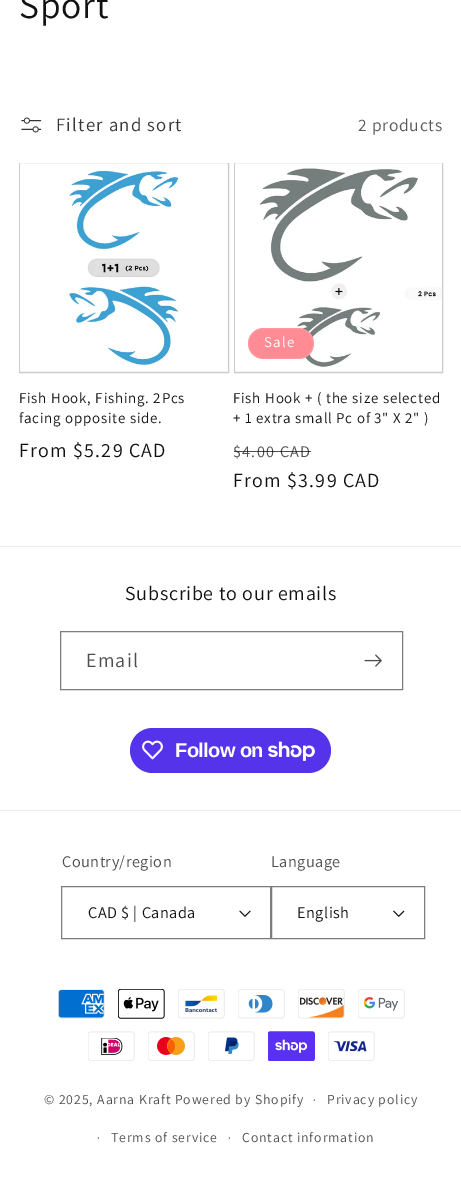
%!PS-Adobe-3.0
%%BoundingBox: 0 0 461 1189
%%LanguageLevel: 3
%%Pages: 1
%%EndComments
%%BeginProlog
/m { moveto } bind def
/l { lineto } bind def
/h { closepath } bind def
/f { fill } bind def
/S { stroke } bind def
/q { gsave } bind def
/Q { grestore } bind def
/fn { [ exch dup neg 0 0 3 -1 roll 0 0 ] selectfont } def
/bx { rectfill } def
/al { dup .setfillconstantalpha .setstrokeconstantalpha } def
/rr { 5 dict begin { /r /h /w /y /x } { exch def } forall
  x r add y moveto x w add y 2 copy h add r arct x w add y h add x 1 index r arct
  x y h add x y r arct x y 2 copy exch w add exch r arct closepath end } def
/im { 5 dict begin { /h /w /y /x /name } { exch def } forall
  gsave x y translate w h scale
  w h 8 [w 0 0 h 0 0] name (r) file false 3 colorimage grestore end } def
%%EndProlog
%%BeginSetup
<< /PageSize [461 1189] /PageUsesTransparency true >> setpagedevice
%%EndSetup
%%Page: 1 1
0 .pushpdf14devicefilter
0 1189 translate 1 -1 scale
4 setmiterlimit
1 setgray
0 0 461 1189 bx
/Assistant-Regular 37.5 fn
0.071 setgray
19 18 m 0.75 0 (Sport) ashow
(image0.raw) 21 117 21 16 im
/Assistant-Regular 18.75 fn
0.212 setgray
56 131 m 1.25 0 (Filter and sort) ashow
/Assistant-Regular 17.5 fn
0.349 setgray
358 131 m 0.75 0 (2 products) ashow
0.953 setgray
19.5 163.5 m 228.5 163.5 l 228.5 372.5 l 19.5 372.5 l h q f Q
0.8 setgray
S
(image1.raw) 20 163 208 208 im
/Assistant-Regular 15 fn
0.071 setgray
19 403 m 0.75 0 (Fish Hook, Fishing. 2Pcs) ashow
19 423 m 0.75 0 (facing opposite side.) ashow
/Assistant-Regular 20 fn
19 457 m 1.25 0 (From $5.29 CAD) ashow
0.953 setgray
235 370 207 2 bx
0.8 setgray
234.5 163.5 208 209 rectstroke
(image2.raw) 235 163 207 208 im
1 0.549 0.58 setrgbcolor
248 328 66 31 15.5 rr f
0.1 al
1 setgray
248.5 328.5 65 30 15 rr S
/Assistant-Regular 15 fn
1 al
264 347 m 1.25 0 (Sale) ashow
0.071 setgray
233 403 m 0.75 0 (Fish Hook + \( the size selected) ashow
233 423 m 0.75 0 (+ 1 extra small Pc of 3" X 2" \)) ashow
/Assistant-Regular 16.25 fn
0.302 setgray
233 457 m 1.25 0 ($4.00 CAD) ashow
0.75 al
0.071 setgray
234 451 77 1 bx
/Assistant-Regular 20 fn
1 al
233 487 m 1.25 0 (From $3.99 CAD) ashow
0.925 setgray
0 546 461 1 bx
0.071 setgray
125 600 m 0.75 0 (Subscribe to our emails) ashow
0.49 setgray
60.5 631.5 342 58 rectstroke
0.302 setgray
86 667 m 1.25 0 (Email) ashow
(image3.raw) 364 654 18 13 im
0.329 0.2 0.922 setrgbcolor
130 728 201 45 22.5 rr f
(image4.raw) 142 740 21 20 im
/LiberationSans-Bold 20 fn
1 setgray
175 757 m -0.6 0 (Follow on) ashow
(image5.raw) 268 741 47 20 im
0.925 setgray
0 810 461 1 bx
/Assistant-Regular 16.25 fn
0.302 setgray
62 867 m 0.5 0 (Country/region) ashow
(image6.raw) 239 910 12 7 im
0.49 setgray
61.5 886.5 209 52 rectstroke
0.071 setgray
88 918 m 0.5 0 (CAD $ | Canada) ashow
0.302 setgray
271 867 m 0.5 0 (Language) ashow
(image7.raw) 393 910 12 7 im
0.49 setgray
271.5 886.5 153 52 rectstroke
0.071 setgray
297 918 m 0.5 0 (English) ashow
(image8.raw) 58 989 47 30 im
(image9.raw) 118 989 47 30 im
(image10.raw) 178 989 47 30 im
(image11.raw) 238 989 47 30 im
(image12.raw) 298 989 47 30 im
(image13.raw) 358 989 47 30 im
(image14.raw) 88 1031 47 30 im
(image15.raw) 148 1031 47 30 im
(image16.raw) 208 1031 47 30 im
(image17.raw) 268 1031 47 30 im
(image18.raw) 328 1031 47 30 im
/Assistant-Regular 13.75 fn
0.302 setgray
44 1104 m 0.9 0 (© 2025, Aarna Kraft Powered by Shopify) ashow
/Assistant-Regular 12 fn
313 1104 m 0.9 0 (·) ashow
/Assistant-Regular 13.75 fn
327 1104 m 0.9 0 (Privacy policy) ashow
/Assistant-Regular 12 fn
97 1142 m 0.9 0 (·) ashow
/Assistant-Regular 13.75 fn
111 1142 m 0.9 0 (Terms of service) ashow
/Assistant-Regular 12 fn
228 1142 m 0.9 0 (·) ashow
/Assistant-Regular 13.75 fn
242 1142 m 0.9 0 (Contact information) ashow
.poppdf14devicefilter showpage
%%EOF
